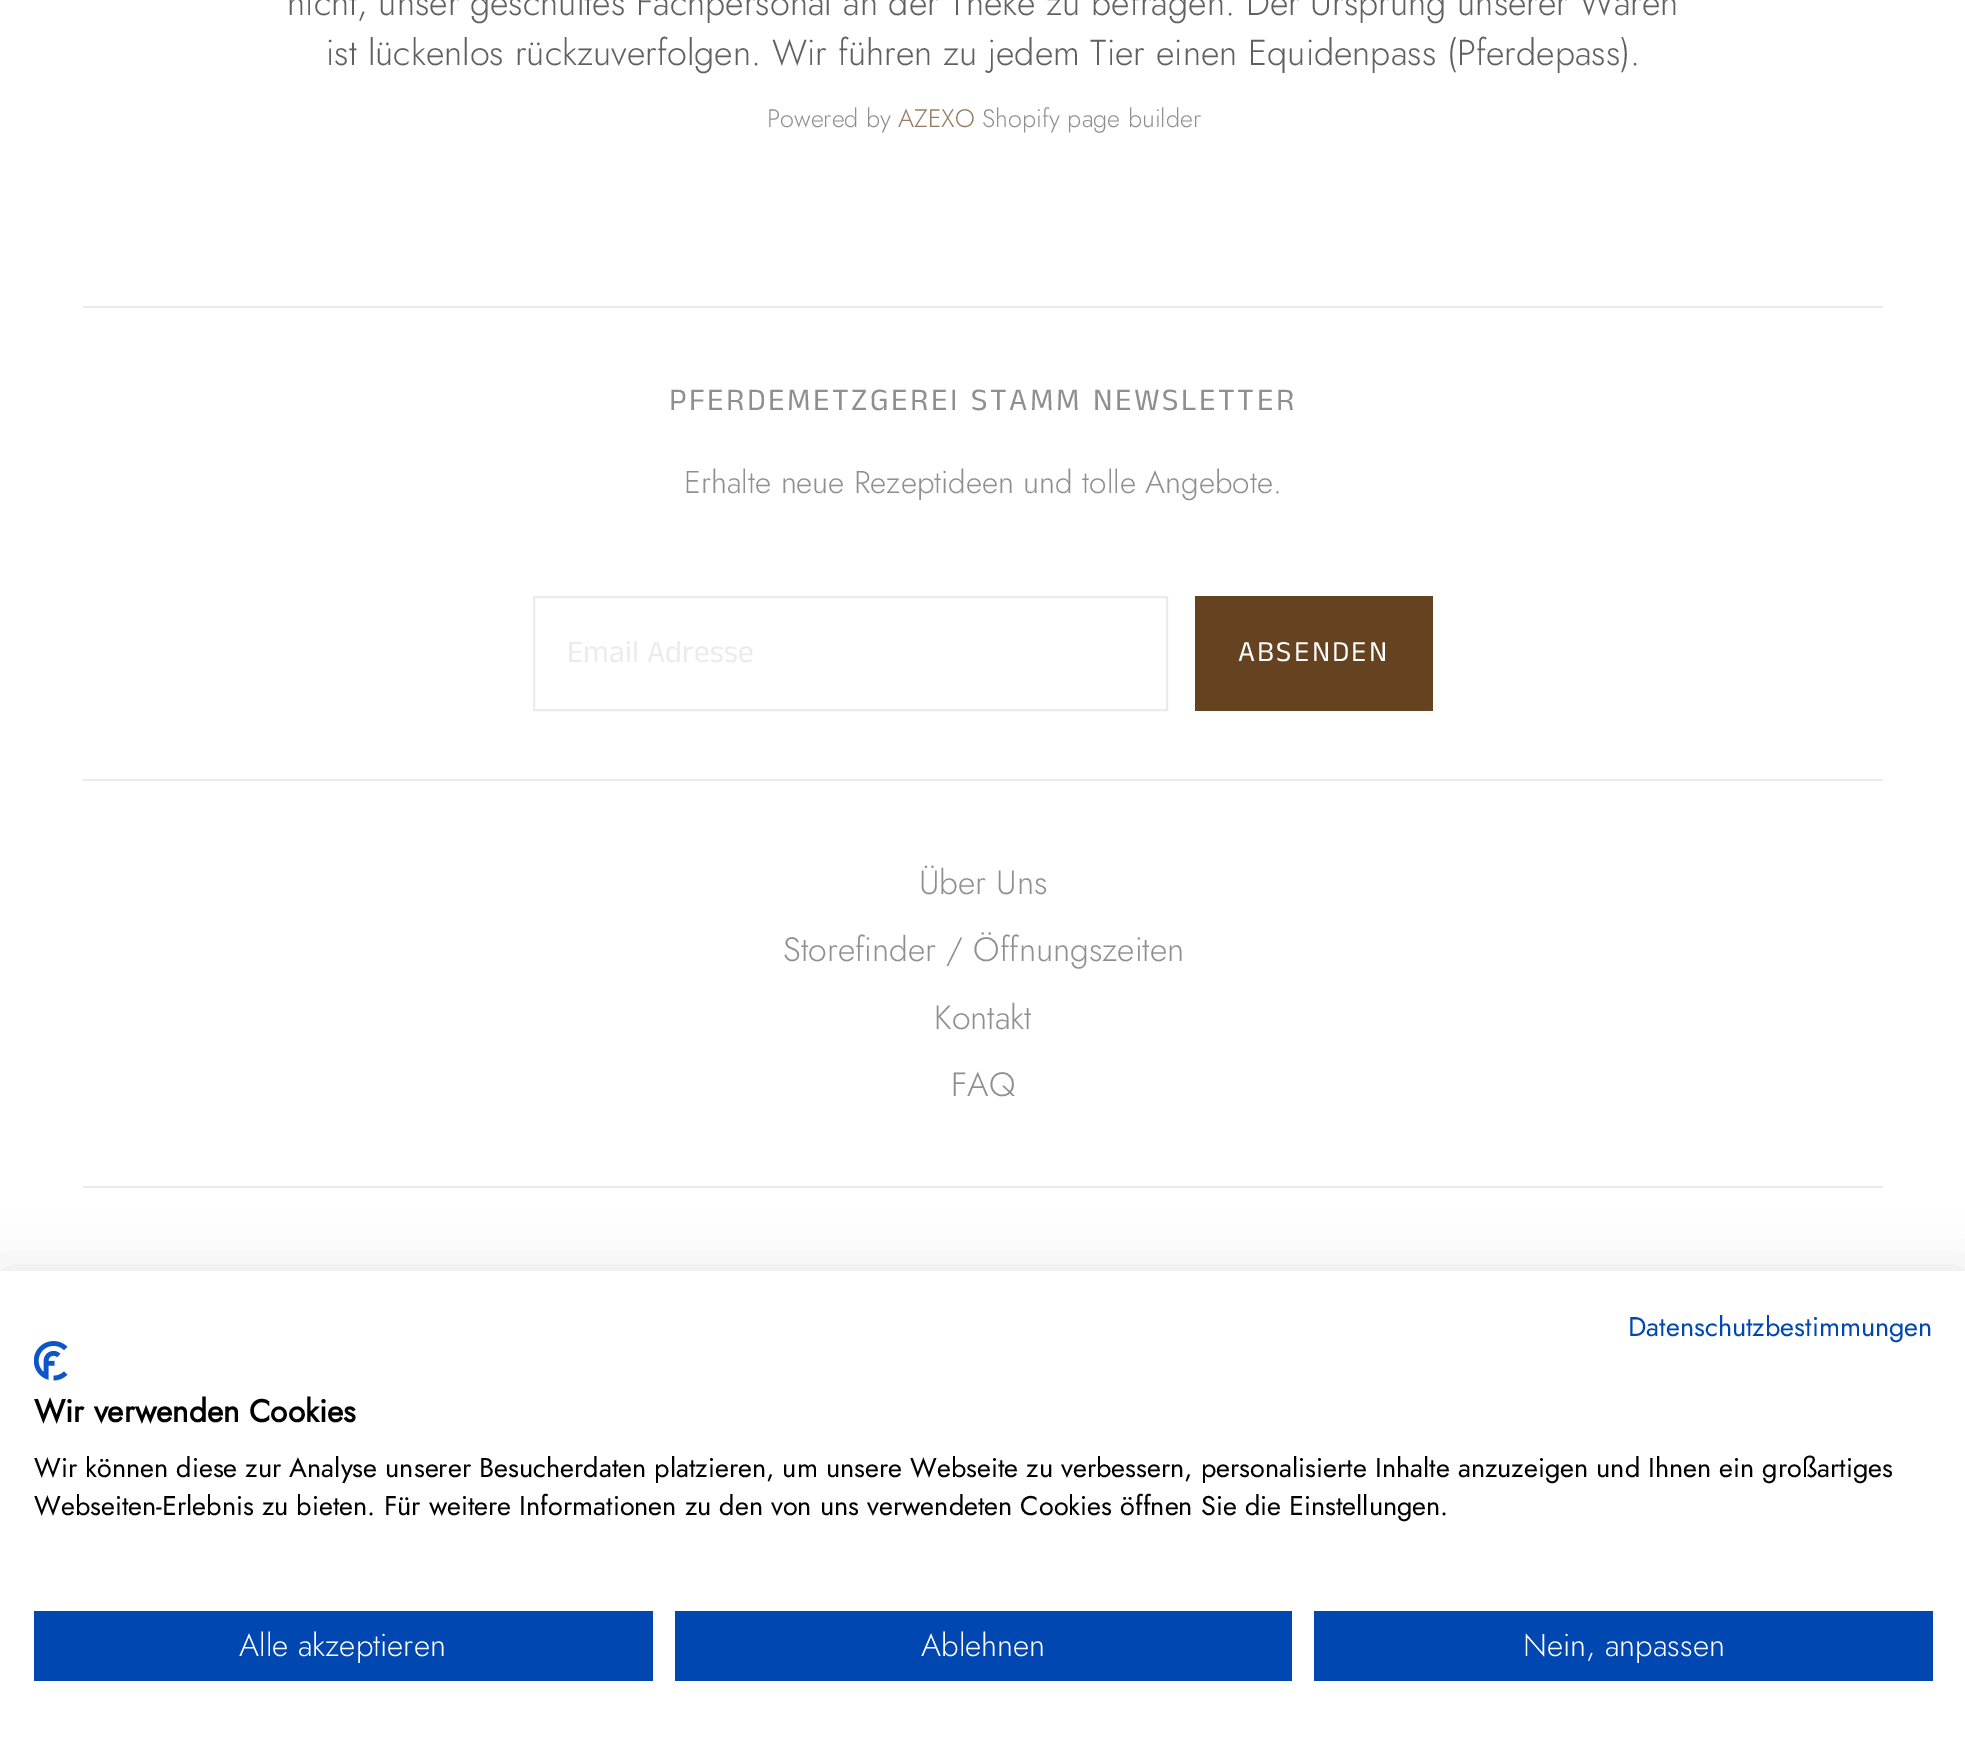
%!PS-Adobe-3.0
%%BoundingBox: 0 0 1965 1740
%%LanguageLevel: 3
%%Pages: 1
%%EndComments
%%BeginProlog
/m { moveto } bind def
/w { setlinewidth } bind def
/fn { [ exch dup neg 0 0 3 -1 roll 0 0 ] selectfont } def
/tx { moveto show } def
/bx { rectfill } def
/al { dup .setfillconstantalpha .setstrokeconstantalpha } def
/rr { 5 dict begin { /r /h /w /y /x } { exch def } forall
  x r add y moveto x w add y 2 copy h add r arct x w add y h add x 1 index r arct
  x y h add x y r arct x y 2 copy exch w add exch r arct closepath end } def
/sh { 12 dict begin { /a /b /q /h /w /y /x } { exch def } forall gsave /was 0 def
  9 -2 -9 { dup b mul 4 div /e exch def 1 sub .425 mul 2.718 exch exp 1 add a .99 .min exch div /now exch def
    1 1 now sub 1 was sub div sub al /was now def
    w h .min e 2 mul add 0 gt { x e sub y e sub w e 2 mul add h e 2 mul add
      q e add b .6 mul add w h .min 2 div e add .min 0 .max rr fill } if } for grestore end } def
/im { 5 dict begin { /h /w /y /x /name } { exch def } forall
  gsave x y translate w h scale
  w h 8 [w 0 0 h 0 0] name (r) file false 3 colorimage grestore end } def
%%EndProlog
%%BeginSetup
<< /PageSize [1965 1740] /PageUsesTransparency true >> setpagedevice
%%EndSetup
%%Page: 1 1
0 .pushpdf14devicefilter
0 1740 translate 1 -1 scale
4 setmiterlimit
1 setgray
0 0 1965 1740 bx
/Jost-Light 36 fn
0.376 setgray
(nicht, unser geschultes Fachpersonal an der Theke zu befragen. Der Ursprung unserer Waren) 287 15 tx
(ist lückenlos rückzuverfolgen. Wir führen zu jedem Tier einen Equidenpass \(Pferdepass\).) 326 65 tx
/Jost-Light 25.25 fn
0.561 setgray
(Powered by) 767 127 tx
0.576 0.482 0.392 setrgbcolor
(AZEXO) 898 127 tx
0.561 setgray
(Shopify page builder) 982 127 tx
0.922 setgray
83 306 1800 2 bx
/AnekTamil-Regular 31.5 fn
0.561 setgray
669 410 m 2.5 0 (PFERDEMETZGEREI STAMM NEWSLETTER) ashow
/Jost-Light 31.5 fn
(Erhalte neue Rezeptideen und tolle Angebote.) 684 493 tx
0.922 setgray
2 w
534 597 633 113 rectstroke
/AnekTamil-Regular 31.5 fn
(Email Adresse) 567 662 tx
0.396 0.263 0.129 setrgbcolor
1195 596 238 115 bx
/AnekTamil-Regular 29.25 fn
1 setgray
1238 661 m 2.25 0 (ABSENDEN) ashow
0.922 setgray
83 779 1800 2 bx
/Jost-Light 33.75 fn
0.561 setgray
(Über Uns) 919 894 tx
(Storefinder / Öffnungszeiten) 783 961 tx
(Kontakt) 934 1029 tx
(FAQ) 951 1096 tx
0.922 setgray
83 1186 1800 2 bx
0 setgray
0 1271 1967 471 0 27 0.1 sh
1 setgray
0 1271 1965 469 bx
/Jost-Regular 27 fn
0 0.278 0.698 setrgbcolor
(Datenschutzbestimmungen) 1628 1336 tx
(image0.raw) 34 1341 34 40 im
/Jost-Bold 31.5 fn
0 setgray
(Wir verwenden Cookies) 34 1422 tx
/Jost-Regular 27 fn
(Wir können diese zur Analyse unserer Besucherdaten platzieren, um unsere Webseite zu verbessern, personalisierte Inhalte anzuzeigen und Ihnen ein großartiges) 34 1477 tx
(Webseiten-Erlebnis zu bieten. Für weitere Informationen zu den von uns verwendeten Cookies öffnen Sie die Einstellungen.) 34 1515 tx
0 0.278 0.698 setrgbcolor
34 1611 619 70 bx
/Jost-Light 31.5 fn
1 setgray
(Alle akzeptieren) 239 1656 tx
0 0.278 0.698 setrgbcolor
675 1611 617 70 bx
1 setgray
(Ablehnen) 921 1656 tx
0 0.278 0.698 setrgbcolor
1314 1611 619 70 bx
1 setgray
(Nein, anpassen) 1523 1656 tx
.poppdf14devicefilter showpage
%%EOF
